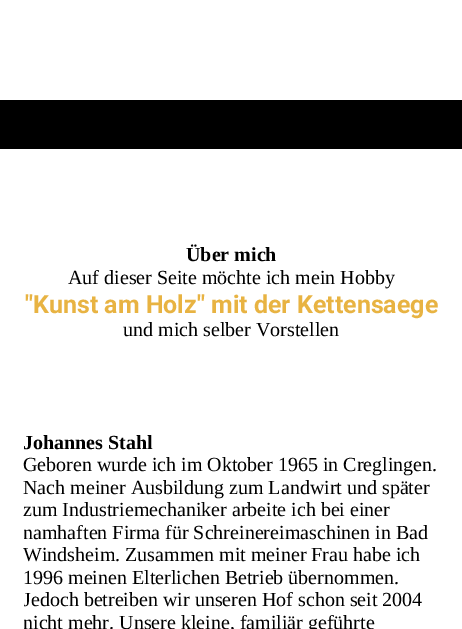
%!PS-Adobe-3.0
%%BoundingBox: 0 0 462 629
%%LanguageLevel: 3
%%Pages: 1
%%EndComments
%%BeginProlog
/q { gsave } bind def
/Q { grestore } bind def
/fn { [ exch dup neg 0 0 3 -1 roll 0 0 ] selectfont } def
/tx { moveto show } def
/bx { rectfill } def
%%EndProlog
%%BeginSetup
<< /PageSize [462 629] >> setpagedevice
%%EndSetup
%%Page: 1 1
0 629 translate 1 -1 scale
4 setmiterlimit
1 setgray
0 0 462 629 bx
0 setgray
0 100 462 49 bx
/LiberationSerif-Bold 20 fn
(Über mich) 186 261 tx
/LiberationSerif-Regular 20 fn
(Auf dieser Seite möchte ich mein Hobby) 68 284 tx
/Roboto-Bold 25 fn
0.91 0.702 0.259 setrgbcolor
("Kunst am Holz" mit der Kettensaege) 25 313 tx
/LiberationSerif-Regular 20 fn
0 setgray
(und mich selber Vorstellen) 123 336 tx
/LiberationSerif-Bold 20 fn
(Johannes Stahl) 23 449 tx
/LiberationSerif-Regular 20 fn
(Geboren wurde ich im Oktober 1965 in Creglingen.) 23 471 tx
(Nach meiner Ausbildung zum Landwirt und später) 23 494 tx
(zum Industriemechaniker arbeite ich bei einer) 23 516 tx
q
24 431 416 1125 rectclip
(namhaften Firma für Schreinereimaschinen in Bad) 23 539 tx
Q
(Windsheim. Zusammen mit meiner Frau habe ich) 23 561 tx
(1996 meinen Elterlichen Betrieb übernommen.) 23 584 tx
q
24 431 416 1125 rectclip
(Jedoch betreiben wir unseren Hof schon seit 2004) 23 606 tx
(nicht mehr. Unsere kleine, familiär geführte) 23 629 tx
Q
showpage
%%EOF
